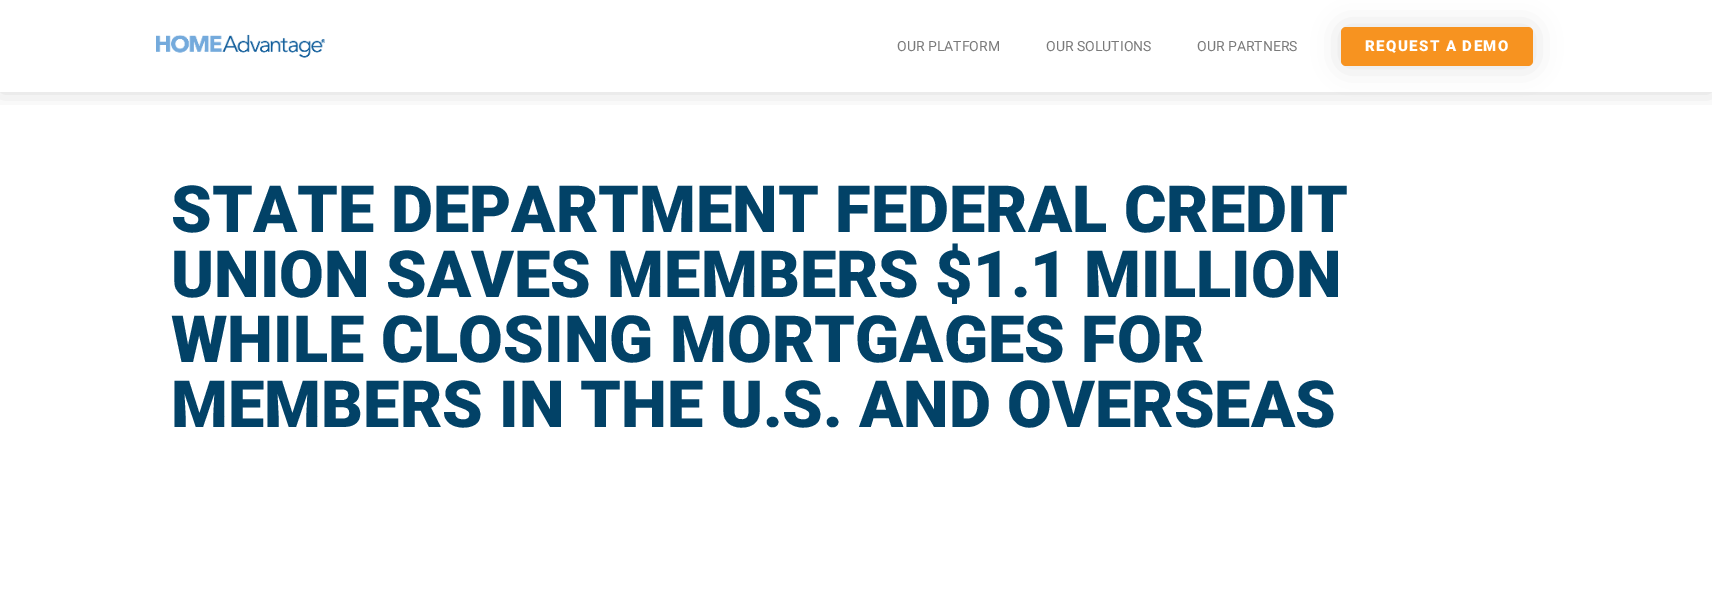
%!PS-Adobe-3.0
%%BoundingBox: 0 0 1712 611
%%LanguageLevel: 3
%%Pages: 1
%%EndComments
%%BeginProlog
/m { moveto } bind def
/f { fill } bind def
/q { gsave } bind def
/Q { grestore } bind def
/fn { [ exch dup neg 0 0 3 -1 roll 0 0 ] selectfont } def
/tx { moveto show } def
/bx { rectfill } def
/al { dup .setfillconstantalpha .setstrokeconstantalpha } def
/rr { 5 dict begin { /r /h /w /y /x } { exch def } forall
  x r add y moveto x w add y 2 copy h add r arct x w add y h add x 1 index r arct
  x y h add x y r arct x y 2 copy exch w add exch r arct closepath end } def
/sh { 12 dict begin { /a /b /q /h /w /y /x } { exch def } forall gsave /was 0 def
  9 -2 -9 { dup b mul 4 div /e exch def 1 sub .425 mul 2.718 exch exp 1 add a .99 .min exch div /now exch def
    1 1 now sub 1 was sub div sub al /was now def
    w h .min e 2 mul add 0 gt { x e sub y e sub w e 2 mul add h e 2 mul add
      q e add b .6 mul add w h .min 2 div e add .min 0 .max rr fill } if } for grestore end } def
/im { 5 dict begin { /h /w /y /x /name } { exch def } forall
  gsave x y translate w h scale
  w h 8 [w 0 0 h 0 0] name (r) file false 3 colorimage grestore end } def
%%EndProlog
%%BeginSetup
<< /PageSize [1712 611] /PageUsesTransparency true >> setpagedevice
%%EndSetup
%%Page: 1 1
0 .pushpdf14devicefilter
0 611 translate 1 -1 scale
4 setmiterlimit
1 setgray
0 0 1712 611 bx
q
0 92 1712 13 rectclip
0 setgray
0 0 1712 92 0 12 0.15 sh
Q
(image0.raw) 156 34 169 24 im
/Roboto-Regular 14 fn
0.478 setgray
(OUR PLATFORM) 897 51 tx
(OUR SOLUTIONS) 1046 51 tx
(OUR PARTNERS) 1197 51 tx
0 setgray
1341 27 192 39 5 13.5 0.12 sh
0.969 0.576 0.125 setrgbcolor
1341 27 192 39 5 rr f
/Roboto-Black 15 fn
1 setgray
1365 51 m 1.4 0 (REQUEST A DEMO) ashow
/Roboto-Black 65 fn
0.008 0.259 0.404 setrgbcolor
(STATE DEPARTMENT FEDERAL CREDIT) 171 232 tx
(UNION SAVES MEMBERS $1.1 MILLION) 171 297 tx
(WHILE CLOSING MORTGAGES FOR) 171 362 tx
(MEMBERS IN THE U.S. AND OVERSEAS) 171 427 tx
.poppdf14devicefilter showpage
%%EOF
